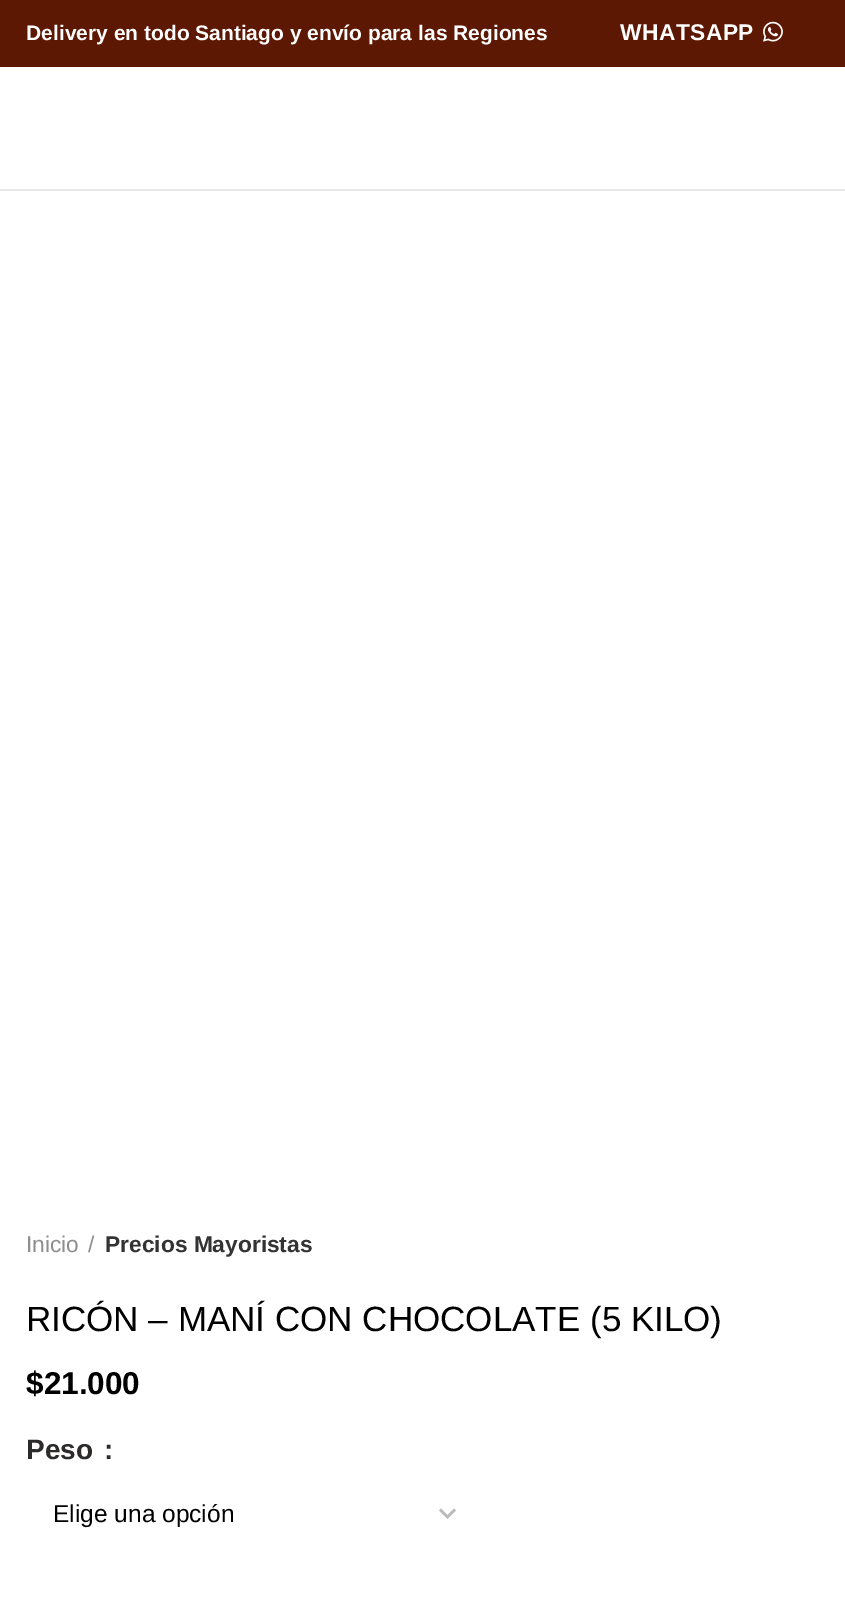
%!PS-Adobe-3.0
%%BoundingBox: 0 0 845 1607
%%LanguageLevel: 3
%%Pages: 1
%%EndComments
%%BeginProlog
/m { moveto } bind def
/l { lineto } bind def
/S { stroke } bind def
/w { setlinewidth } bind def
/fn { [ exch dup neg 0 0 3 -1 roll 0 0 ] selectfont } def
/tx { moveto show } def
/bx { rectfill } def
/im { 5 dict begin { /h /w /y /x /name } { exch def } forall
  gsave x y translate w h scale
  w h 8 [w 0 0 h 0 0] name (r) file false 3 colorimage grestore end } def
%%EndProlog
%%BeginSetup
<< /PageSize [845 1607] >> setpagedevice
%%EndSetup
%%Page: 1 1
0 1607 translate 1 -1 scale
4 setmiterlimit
1 setgray
0 0 845 1607 bx
0.365 0.094 0.012 setrgbcolor
0 0 845 67 bx
/LiberationSans-Bold 21 fn
1 setgray
(Delivery en todo Santiago y envío para las Regiones) 26 40 tx
/LiberationSans-Bold 22.75 fn
620 40 m 0.5 0 (WHATSAPP) ashow
(image0.raw) 763 21 20 21 im
0.91 setgray
0 189 845 2 bx
/LiberationSans-Regular 22.75 fn
0.557 setgray
(Inicio) 26 1252 tx
(/) 88 1252 tx
/LiberationSans-Bold 22.75 fn
0.2 setgray
(Precios Mayoristas) 105 1252 tx
/LiberationSans-Regular 35 fn
0 setgray
(RICÓN – MANÍ CON CHOCOLATE \(5 KILO\)) 26 1331 tx
/LiberationSans-Bold 31.5 fn
($21.000) 26 1394 tx
/LiberationSans-Bold 28 fn
0.176 0.165 0.165 setrgbcolor
(Peso) 26 1459 tx
(:) 104 1459 tx
0.733 setgray
2.5 w
440 1509.5 m 447.5 1517 l 455 1509.5 l S
/LiberationSans-Regular 24.5 fn
0 setgray
(Elige una opción) 53 1522 tx
showpage
%%EOF
